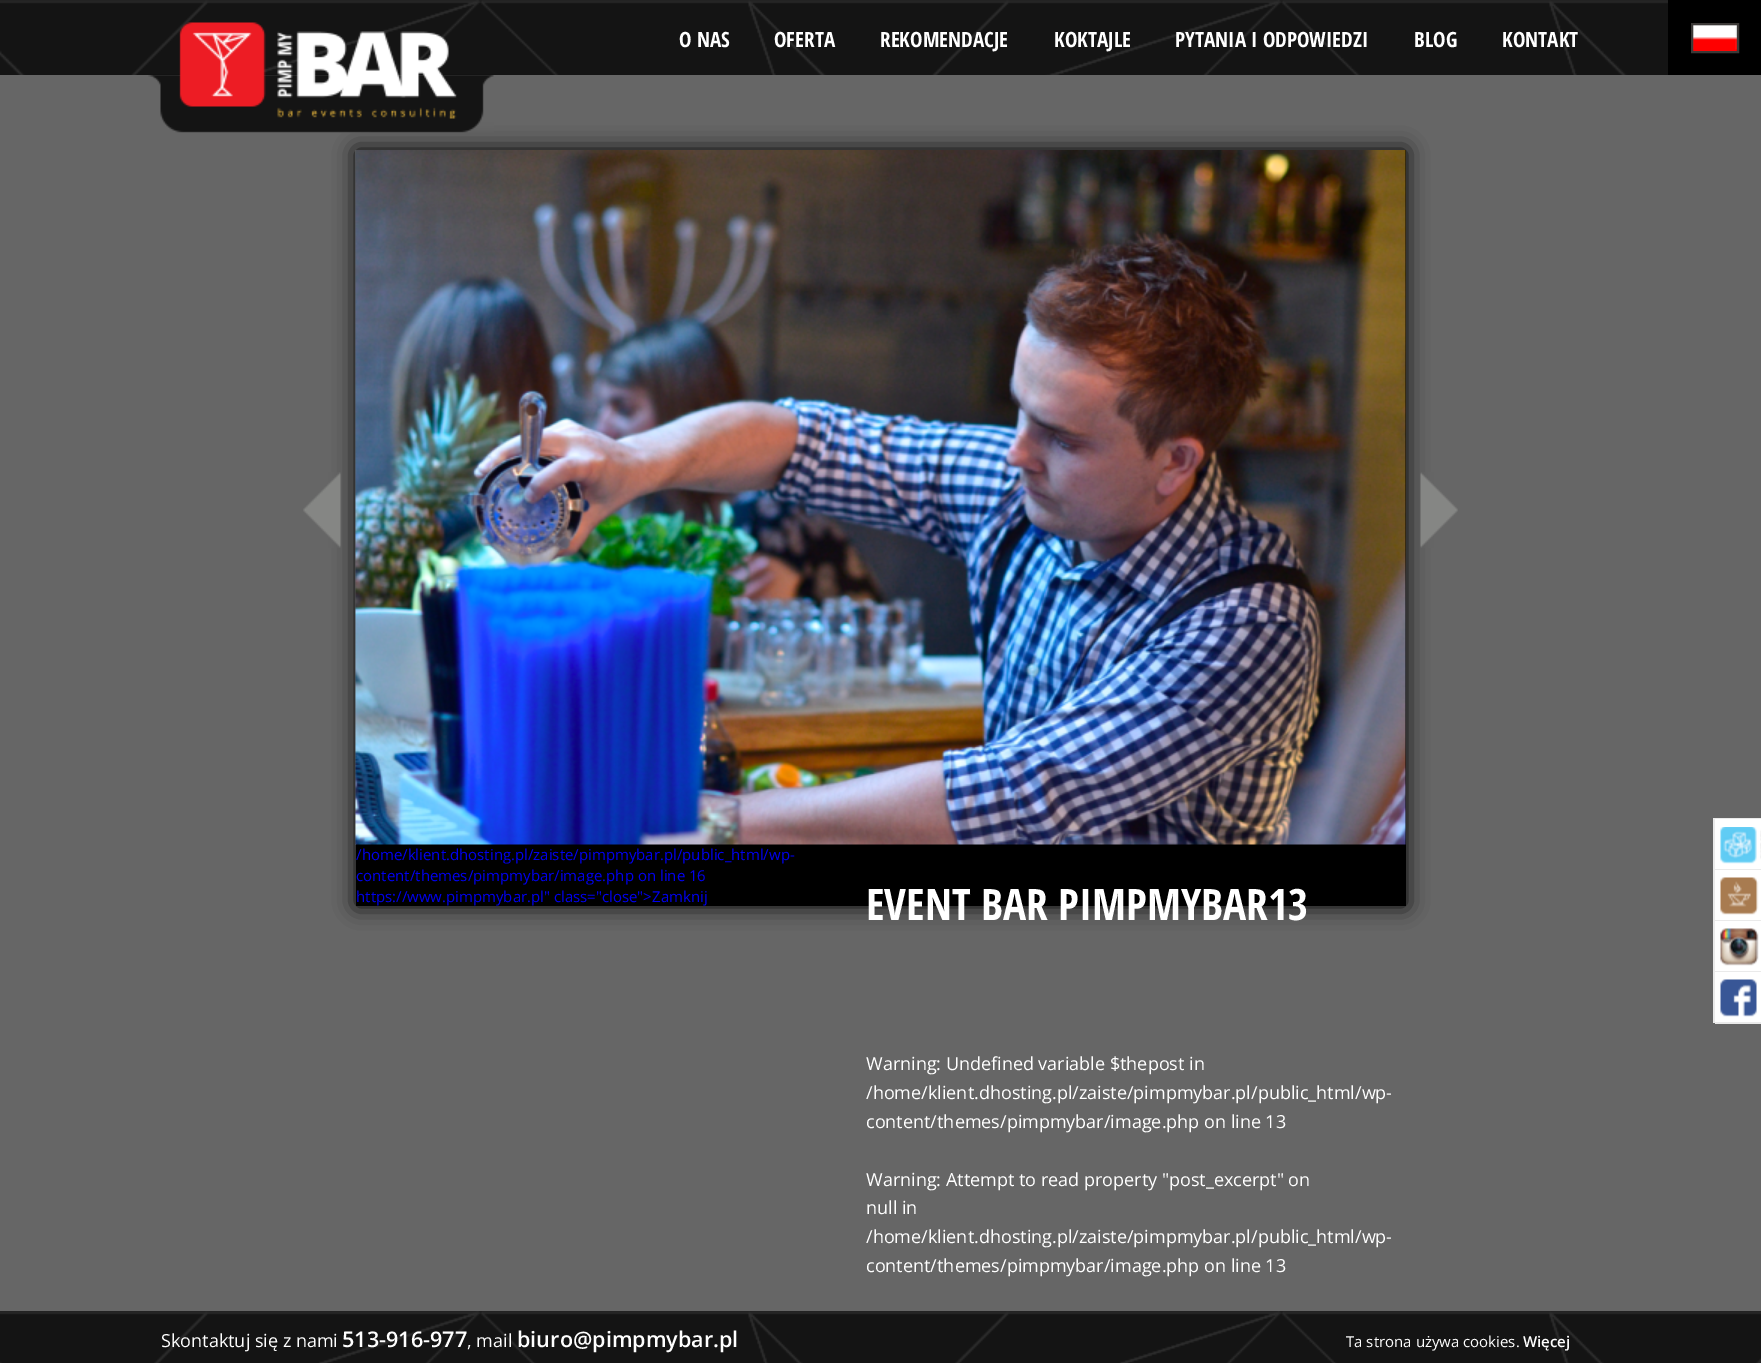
%!PS-Adobe-3.0
%%BoundingBox: 0 0 1761 1363
%%LanguageLevel: 3
%%Pages: 1
%%EndComments
%%BeginProlog
/w { setlinewidth } bind def
/fn { [ exch dup neg 0 0 3 -1 roll 0 0 ] selectfont } def
/tx { moveto show } def
/bx { rectfill } def
/al { dup .setfillconstantalpha .setstrokeconstantalpha } def
/rr { 5 dict begin { /r /h /w /y /x } { exch def } forall
  x r add y moveto x w add y 2 copy h add r arct x w add y h add x 1 index r arct
  x y h add x y r arct x y 2 copy exch w add exch r arct closepath end } def
/sh { 12 dict begin { /a /b /q /h /w /y /x } { exch def } forall gsave /was 0 def
  9 -2 -9 { dup b mul 4 div /e exch def 1 sub .425 mul 2.718 exch exp 1 add a .99 .min exch div /now exch def
    1 1 now sub 1 was sub div sub al /was now def
    w h .min e 2 mul add 0 gt { x e sub y e sub w e 2 mul add h e 2 mul add
      q e add b .6 mul add w h .min 2 div e add .min 0 .max rr fill } if } for grestore end } def
/im { 5 dict begin { /h /w /y /x /name } { exch def } forall
  gsave x y translate w h scale
  w h 8 [w 0 0 h 0 0] name (r) file false 3 colorimage grestore end } def
%%EndProlog
%%BeginSetup
<< /PageSize [1761 1363] /PageUsesTransparency true >> setpagedevice
%%EndSetup
%%Page: 1 1
0 .pushpdf14devicefilter
0 1363 translate 1 -1 scale
4 setmiterlimit
0.4 setgray
0 0 1761 1363 bx
(image0.raw) 0 0 1668 75 im
0 setgray
356 150 1050 756 0 11 1 sh
(image1.raw) 148 74 346 59 im
(image2.raw) 179 22 278 97 im
/OpenSansCondensed-Bold 21 fn
1 setgray
(O NAS) 679 47 tx
(OFERTA) 774 47 tx
(REKOMENDACJE) 880 47 tx
(KOKTAJLE) 1054 47 tx
(PYTANIA I ODPOWIEDZI) 1175 47 tx
(BLOG) 1414 47 tx
(KONTAKT) 1502 47 tx
0 setgray
1668 0 93 75 bx
(image3.raw) 1693 25 44 26 im
0.235 0.224 0.216 setrgbcolor
2 w
1692 24 46 28 rectstroke
0 setgray
356 150 1050 756 bx
(image4.raw) 303 472 38 76 im
(image5.raw) 355 150 1051 695 im
(image6.raw) 1420 472 38 76 im
/OpenSans-Regular 15 fn
0 0 0.933 setrgbcolor
(/home/klient.dhosting.pl/zaiste/pimpmybar.pl/public_html/wp-) 356 860 tx
(content/themes/pimpmybar/image.php on line 16) 356 881 tx
(https://www.pimpmybar.pl" class="close">Zamknij) 356 902 tx
/OpenSansCondensed-Bold 43.25 fn
1 setgray
(EVENT BAR PIMPMYBAR13) 866 920 tx
/OpenSans-Regular 18 fn
(Warning: Undefined variable $thepost in) 866 1070 tx
(/home/klient.dhosting.pl/zaiste/pimpmybar.pl/public_html/wp-) 866 1099 tx
(content/themes/pimpmybar/image.php on line 13) 866 1128 tx
(Warning: Attempt to read property "post_excerpt" on) 866 1186 tx
(null in) 866 1214 tx
(/home/klient.dhosting.pl/zaiste/pimpmybar.pl/public_html/wp-) 866 1243 tx
(content/themes/pimpmybar/image.php on line 13) 866 1272 tx
0.918 setgray
1713 818 48 1 bx
1713 818 2 205 bx
1 setgray
1715 819 46 50 bx
0.918 setgray
1715 869 46 1 bx
(image7.raw) 1720 827 41 37 im
1 setgray
1715 870 46 50 bx
0.918 setgray
1715 920 46 1 bx
(image8.raw) 1720 877 39 38 im
1 setgray
1715 921 46 50 bx
0.918 setgray
1715 971 46 1 bx
(image9.raw) 1720 928 39 38 im
1 setgray
1715 972 46 50 bx
0.918 setgray
1715 1022 46 2 bx
(image10.raw) 1720 979 37 38 im
(image11.raw) 0 1311 1761 52 im
1 setgray
(Skontaktuj się z nami) 161 1347 tx
/OpenSans-SemiBold 21.6 fn
(513-916-977) 342 1347 tx
/OpenSans-Regular 18 fn
(, mail) 467 1347 tx
/OpenSans-SemiBold 21.6 fn
(biuro@pimpmybar.pl) 517 1347 tx
/OpenSans-Regular 15 fn
(Ta strona używa cookies.) 1346 1347 tx
/OpenSans-SemiBold 15 fn
(Więcej) 1523 1347 tx
.poppdf14devicefilter showpage
%%EOF
